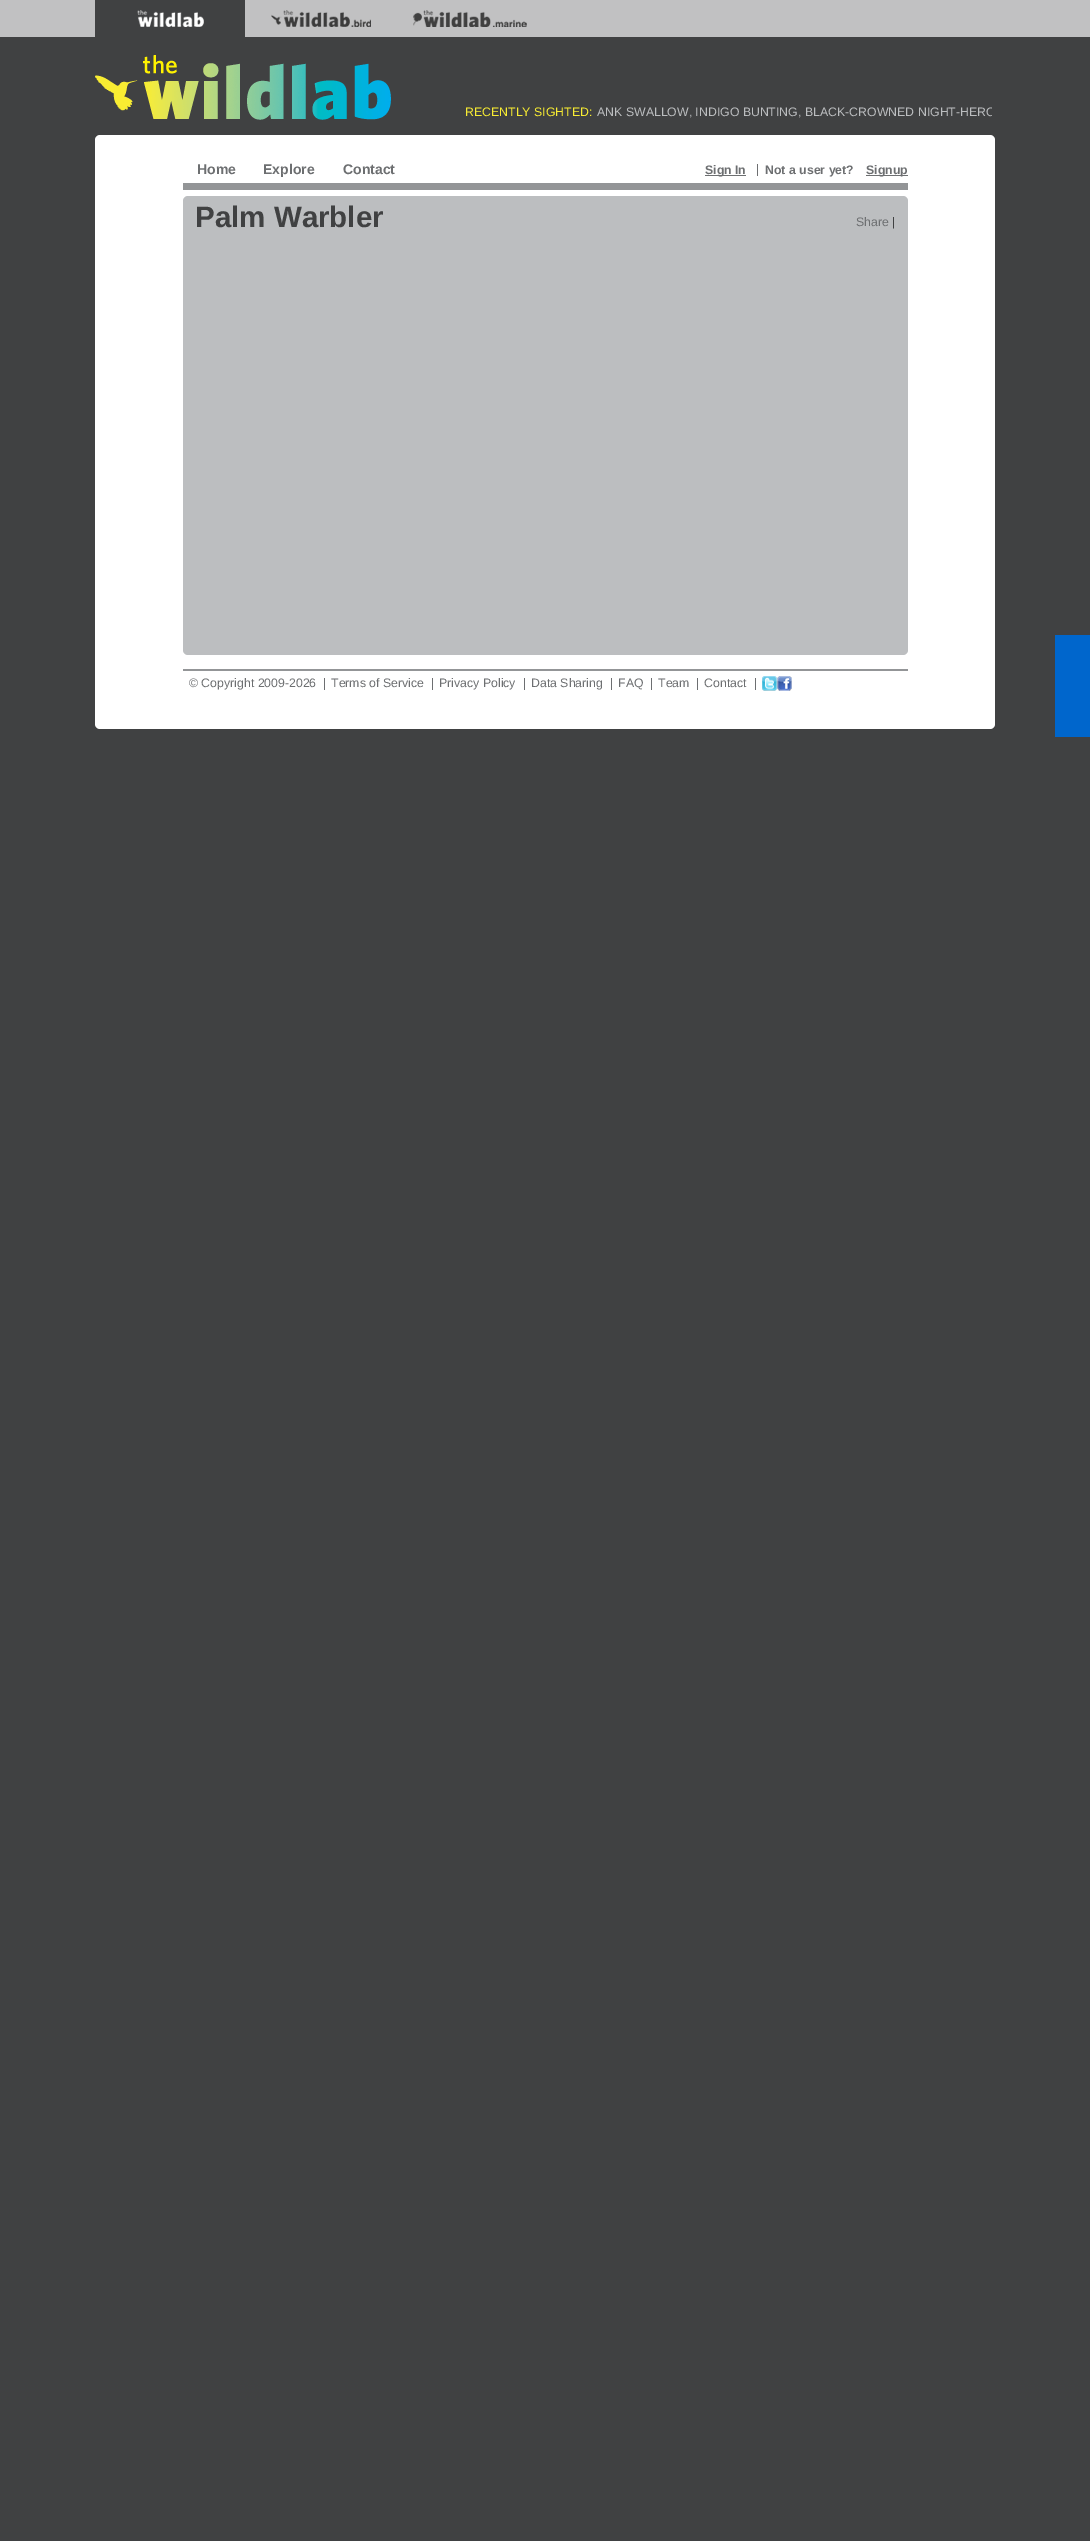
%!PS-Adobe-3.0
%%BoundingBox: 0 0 1090 2541
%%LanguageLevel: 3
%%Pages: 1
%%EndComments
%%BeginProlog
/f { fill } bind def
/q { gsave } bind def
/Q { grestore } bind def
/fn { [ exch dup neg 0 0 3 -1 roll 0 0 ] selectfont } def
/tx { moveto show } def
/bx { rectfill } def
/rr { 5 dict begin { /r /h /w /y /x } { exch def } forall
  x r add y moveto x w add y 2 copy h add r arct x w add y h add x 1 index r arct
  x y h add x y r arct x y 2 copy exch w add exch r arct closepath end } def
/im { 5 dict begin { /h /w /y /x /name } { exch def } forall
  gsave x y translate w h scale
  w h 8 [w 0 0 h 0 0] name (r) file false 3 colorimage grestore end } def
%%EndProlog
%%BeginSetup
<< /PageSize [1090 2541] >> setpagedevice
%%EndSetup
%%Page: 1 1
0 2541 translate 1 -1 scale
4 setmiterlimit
0.251 0.255 0.259 setrgbcolor
0 0 1090 2541 bx
0.757 0.757 0.761 setrgbcolor
0 0 1090 37 bx
0.251 0.255 0.259 setrgbcolor
95 0 150 37 bx
(image0.raw) 137 10 67 17 im
(image1.raw) 271 10 100 17 im
(image2.raw) 413 10 114 17 im
(image3.raw) 95 55 296 65 im
/LiberationSans-Regular 12.3 fn
0.976 0.929 0.2 setrgbcolor
(RECENTLY SIGHTED:) 465 116 tx
0.737 0.745 0.753 setrgbcolor
(ANK SWALLOW, INDIGO BUNTING,) 597 116 tx
q
597 105 395 15 rectclip
(BLACK-CROWNED NIGHT-HERO) 805 116 tx
Q
1 setgray
95 135 900 594 5 rr f
0.576 0.584 0.592 setrgbcolor
183 183 725 7 bx
/LiberationSans-Bold 14 fn
0.427 0.435 0.443 setrgbcolor
(Home) 197 174 tx
(Explore) 263 174 tx
(Contact) 343 174 tx
705 175 41 1 bx
/LiberationSans-Bold 12.3 fn
(Sign In) 705 174 tx
757 164 1 12 bx
(Not a user yet?) 765 174 tx
866 175 42 1 bx
(Signup) 866 174 tx
0.737 0.745 0.753 setrgbcolor
183 196 725 459 5 rr f
/LiberationSans-Bold 29.5 fn
0.251 0.255 0.259 setrgbcolor
(Palm Warbler) 195 227 tx
/LiberationSans-Regular 12.3 fn
0.427 0.435 0.443 setrgbcolor
(Share) 856 226 tx
0.251 0.255 0.259 setrgbcolor
(|) 892 226 tx
0.576 0.584 0.592 setrgbcolor
183 669 725 2 bx
0.427 0.435 0.443 setrgbcolor
324 678 1 12 bx
(© Copyright 2009-2026) 189 687 tx
432 678 1 12 bx
(Terms of Service) 331 687 tx
524 678 1 12 bx
(Privacy Policy) 439 687 tx
611 678 1 12 bx
(Data Sharing) 531 687 tx
651 678 1 12 bx
(FAQ) 618 687 tx
697 678 1 12 bx
(Team) 658 687 tx
755 678 1 12 bx
(Contact) 704 687 tx
(image4.raw) 762 676 15 15 im
(image5.raw) 777 676 15 15 im
0 0.4 0.8 setrgbcolor
1055 635 35 102 bx
showpage
%%EOF
